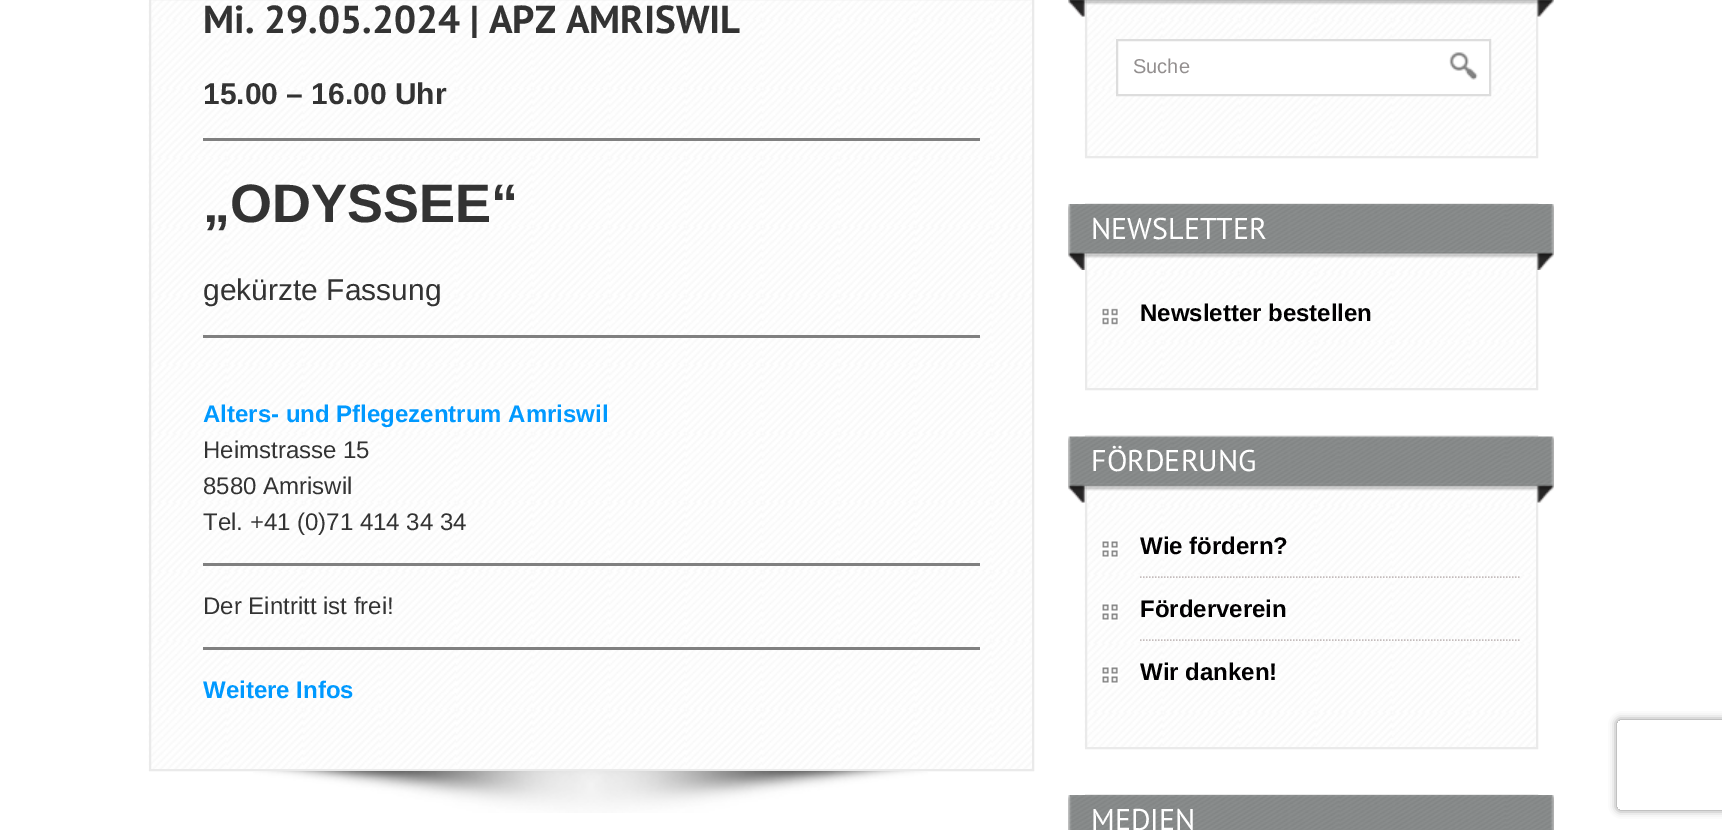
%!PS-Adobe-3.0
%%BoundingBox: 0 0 1722 830
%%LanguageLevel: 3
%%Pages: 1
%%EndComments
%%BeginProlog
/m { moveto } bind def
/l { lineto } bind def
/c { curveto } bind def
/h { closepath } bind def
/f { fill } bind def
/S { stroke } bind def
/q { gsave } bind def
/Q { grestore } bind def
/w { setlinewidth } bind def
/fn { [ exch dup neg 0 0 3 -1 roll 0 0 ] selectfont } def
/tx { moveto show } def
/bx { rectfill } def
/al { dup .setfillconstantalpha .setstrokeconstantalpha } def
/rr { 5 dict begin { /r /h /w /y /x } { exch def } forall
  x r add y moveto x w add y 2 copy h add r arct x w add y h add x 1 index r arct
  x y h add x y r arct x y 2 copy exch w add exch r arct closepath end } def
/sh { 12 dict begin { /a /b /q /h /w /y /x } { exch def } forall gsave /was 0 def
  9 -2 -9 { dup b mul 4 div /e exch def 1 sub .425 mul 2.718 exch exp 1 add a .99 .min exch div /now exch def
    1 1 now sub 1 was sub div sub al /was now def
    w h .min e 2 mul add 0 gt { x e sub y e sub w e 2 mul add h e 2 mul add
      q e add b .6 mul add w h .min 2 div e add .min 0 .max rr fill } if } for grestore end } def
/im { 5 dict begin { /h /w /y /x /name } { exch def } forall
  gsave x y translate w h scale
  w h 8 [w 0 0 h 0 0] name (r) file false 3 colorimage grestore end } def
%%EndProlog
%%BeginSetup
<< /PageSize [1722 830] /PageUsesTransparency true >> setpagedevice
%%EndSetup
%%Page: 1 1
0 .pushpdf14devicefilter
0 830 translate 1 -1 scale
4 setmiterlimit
1 setgray
0 0 1722 830 bx
(image0.raw) 148 0 884 771 im
0.918 setgray
2 w
150 -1 883 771 rectstroke
/PTSans-Bold 39 fn
0.2 setgray
(Mi. 29.05.2024 | APZ AMRISWIL) 203 33 tx
/LiberationSans-Bold 30 fn
(15.00 – 16.00 Uhr) 203 104 tx
0.502 setgray
203 138 777 3 bx
/LiberationSans-Bold 54 fn
0.2 setgray
(„ODYSSEE“) 203 222 tx
/LiberationSans-Regular 30 fn
(gekürzte Fassung) 203 300 tx
0.502 setgray
203 335 777 3 bx
/LiberationSans-Bold 24 fn
0 0.6 1 setrgbcolor
(Alters- und Pflegezentrum Amriswil) 203 422 tx
/LiberationSans-Regular 24 fn
0.2 setgray
(Heimstrasse 15) 203 458 tx
(8580 Amriswil) 203 494 tx
(Tel. +41 \(0\)71 414 34 34) 203 530 tx
0.502 setgray
203 563 777 3 bx
0.2 setgray
(Der Eintritt ist frei!) 203 614 tx
0.502 setgray
203 647 777 3 bx
/LiberationSans-Bold 24 fn
0 0.6 1 setrgbcolor
(Weitere Infos) 203 698 tx
(image1.raw) 253 771 675 42 im
(image2.raw) 1084 0 452 158 im
0.918 setgray
1086 -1 451 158 rectstroke
(image3.raw) 1068 0 486 17 im
1 setgray
1117 40 m 1490 40 l 1490 95 l 1117 95 l h q f Q
0.867 setgray
S
/LiberationSans-Regular 20 fn
0.576 0.561 0.561 setrgbcolor
(Suche) 1133 73 tx
(image4.raw) 1449 52 29 28 im
(image5.raw) 1087 205 449 183 im
0.918 setgray
1086 204 451 185 rectstroke
(image6.raw) 1068 204 486 66 im
/PTSans-Regular 30 fn
1 setgray
(NEWSLETTER) 1091 239 tx
(image7.raw) 1101 308 18 17 im
/LiberationSans-Bold 24 fn
0.004 0 0.004 setrgbcolor
(Newsletter bestellen) 1140 321 tx
(image8.raw) 1084 435 452 313 im
0.918 setgray
1086 436 451 312 rectstroke
(image9.raw) 1068 436 486 67 im
/PTSans-Regular 30 fn
1 setgray
(FÖRDERUNG) 1091 471 tx
(image10.raw) 1101 540 18 18 im
0.769 0.737 0.737 setrgbcolor
1.5 w
[1.5 1.5] 0 setdash
1140 577 m 1521 577 l S
/LiberationSans-Bold 24 fn
0.004 0 0.004 setrgbcolor
(Wie fördern?) 1140 554 tx
(image10.raw) 1101 603 18 18 im
0.769 0.737 0.737 setrgbcolor
1140 640 m 1521 640 l S
0.004 0 0.004 setrgbcolor
(Förderverein) 1140 617 tx
(image10.raw) 1101 666 18 18 im
(Wir danken!) 1140 680 tx
(image11.raw) 1087 796 449 1 im
0.918 setgray
2 w
[] 0 setdash
1086 795 451 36 rectstroke
(image12.raw) 1068 795 486 35 im
/PTSans-Regular 30 fn
1 setgray
(MEDIEN) 1091 830 tx
q
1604 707 m 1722 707 l 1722 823 l 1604 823 l h 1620 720 m 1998 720 l 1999.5 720 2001 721.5 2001 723 c 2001 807 l 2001 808.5 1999.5 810 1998 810 c 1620 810 l 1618.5 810 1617 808.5 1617 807 c 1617 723 l 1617 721.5 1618.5 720 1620 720 c h eoclip newpath
0.502 setgray
1617 720 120 90 3 4 1 sh
Q
.poppdf14devicefilter showpage
%%EOF
